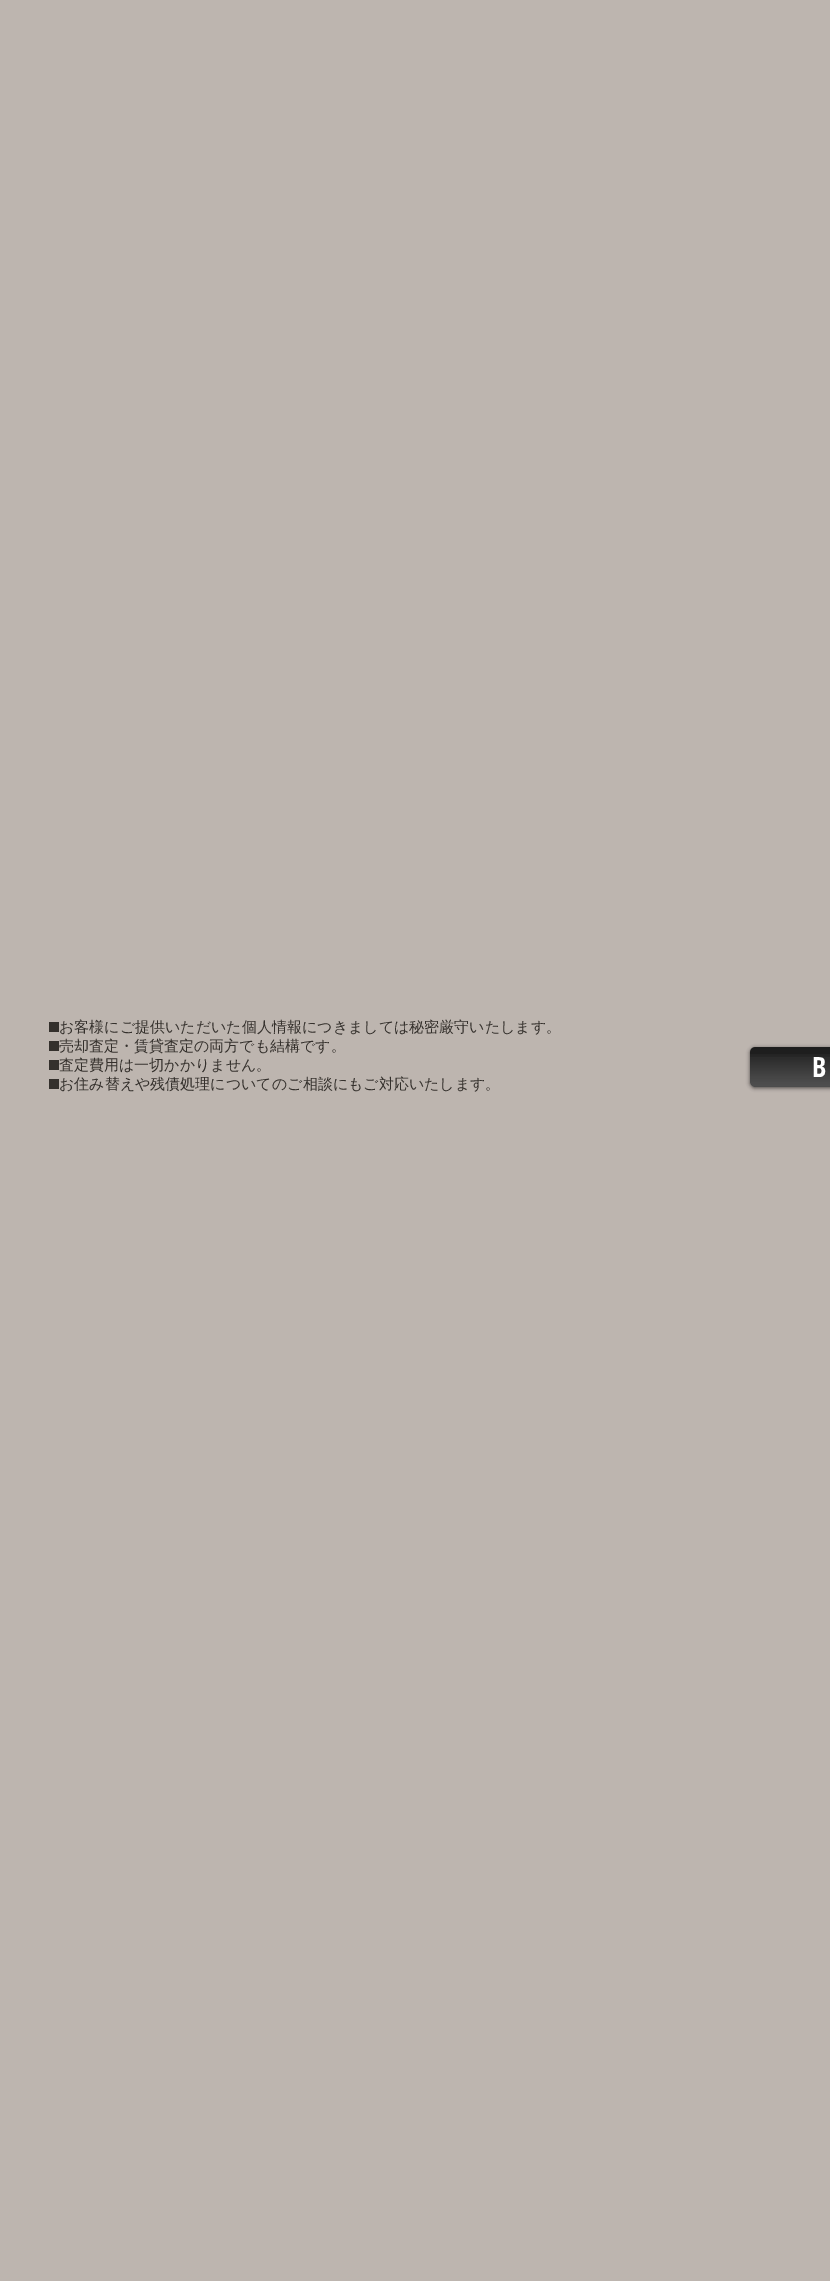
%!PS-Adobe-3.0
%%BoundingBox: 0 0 830 2281
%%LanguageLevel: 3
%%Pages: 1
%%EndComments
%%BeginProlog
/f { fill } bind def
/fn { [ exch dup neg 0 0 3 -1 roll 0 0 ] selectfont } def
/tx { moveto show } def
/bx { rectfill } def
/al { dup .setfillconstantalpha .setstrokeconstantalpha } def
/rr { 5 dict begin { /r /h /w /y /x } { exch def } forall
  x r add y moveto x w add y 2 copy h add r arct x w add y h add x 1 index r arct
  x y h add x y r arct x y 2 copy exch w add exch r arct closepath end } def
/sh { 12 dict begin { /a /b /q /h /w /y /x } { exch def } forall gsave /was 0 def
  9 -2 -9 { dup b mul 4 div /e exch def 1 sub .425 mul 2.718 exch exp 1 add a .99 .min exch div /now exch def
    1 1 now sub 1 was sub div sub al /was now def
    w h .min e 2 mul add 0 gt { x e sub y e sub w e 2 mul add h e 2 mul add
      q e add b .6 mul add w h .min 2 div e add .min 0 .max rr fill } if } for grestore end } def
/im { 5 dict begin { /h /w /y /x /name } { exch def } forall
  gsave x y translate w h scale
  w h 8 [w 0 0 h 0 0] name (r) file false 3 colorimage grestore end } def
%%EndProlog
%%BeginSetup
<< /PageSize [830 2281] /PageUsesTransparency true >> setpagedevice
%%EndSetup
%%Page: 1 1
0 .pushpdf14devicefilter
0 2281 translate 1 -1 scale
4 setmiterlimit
0.741 0.71 0.686 setrgbcolor
0 0 830 2281 bx
/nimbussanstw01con-Regular 15 fn
0.204 0.188 0.173 setrgbcolor
(■) 49 1032 tx
/WenQuanYiZenHei-Medium 15 fn
(お客様にご提供いただいた個人情報につきましては秘密厳守いたします。) 59 1032 tx
/nimbussanstw01con-Regular 15 fn
(■) 49 1051 tx
/WenQuanYiZenHei-Medium 15 fn
(売却査定・賃貸査定の両方でも結構です。) 59 1051 tx
/nimbussanstw01con-Regular 15 fn
(■) 49 1070 tx
/WenQuanYiZenHei-Medium 15 fn
(査定費用は一切かかりません。) 59 1070 tx
/nimbussanstw01con-Regular 15 fn
(■) 49 1089 tx
/WenQuanYiZenHei-Medium 15 fn
(お住み替えや残債処理についてのご相談にもご対応いたします。) 59 1089 tx
0 setgray
750 1048 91 40 5 2 0.6 sh
0.137 setgray
750 1047 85 40 5 rr f
(image0.raw) 750 1047 80 10 im
(image1.raw) 750 1054 80 33 im
/OpenSansCondensed-Bold 28 fn
1 setgray
(B) 812 1077 tx
.poppdf14devicefilter showpage
%%EOF
